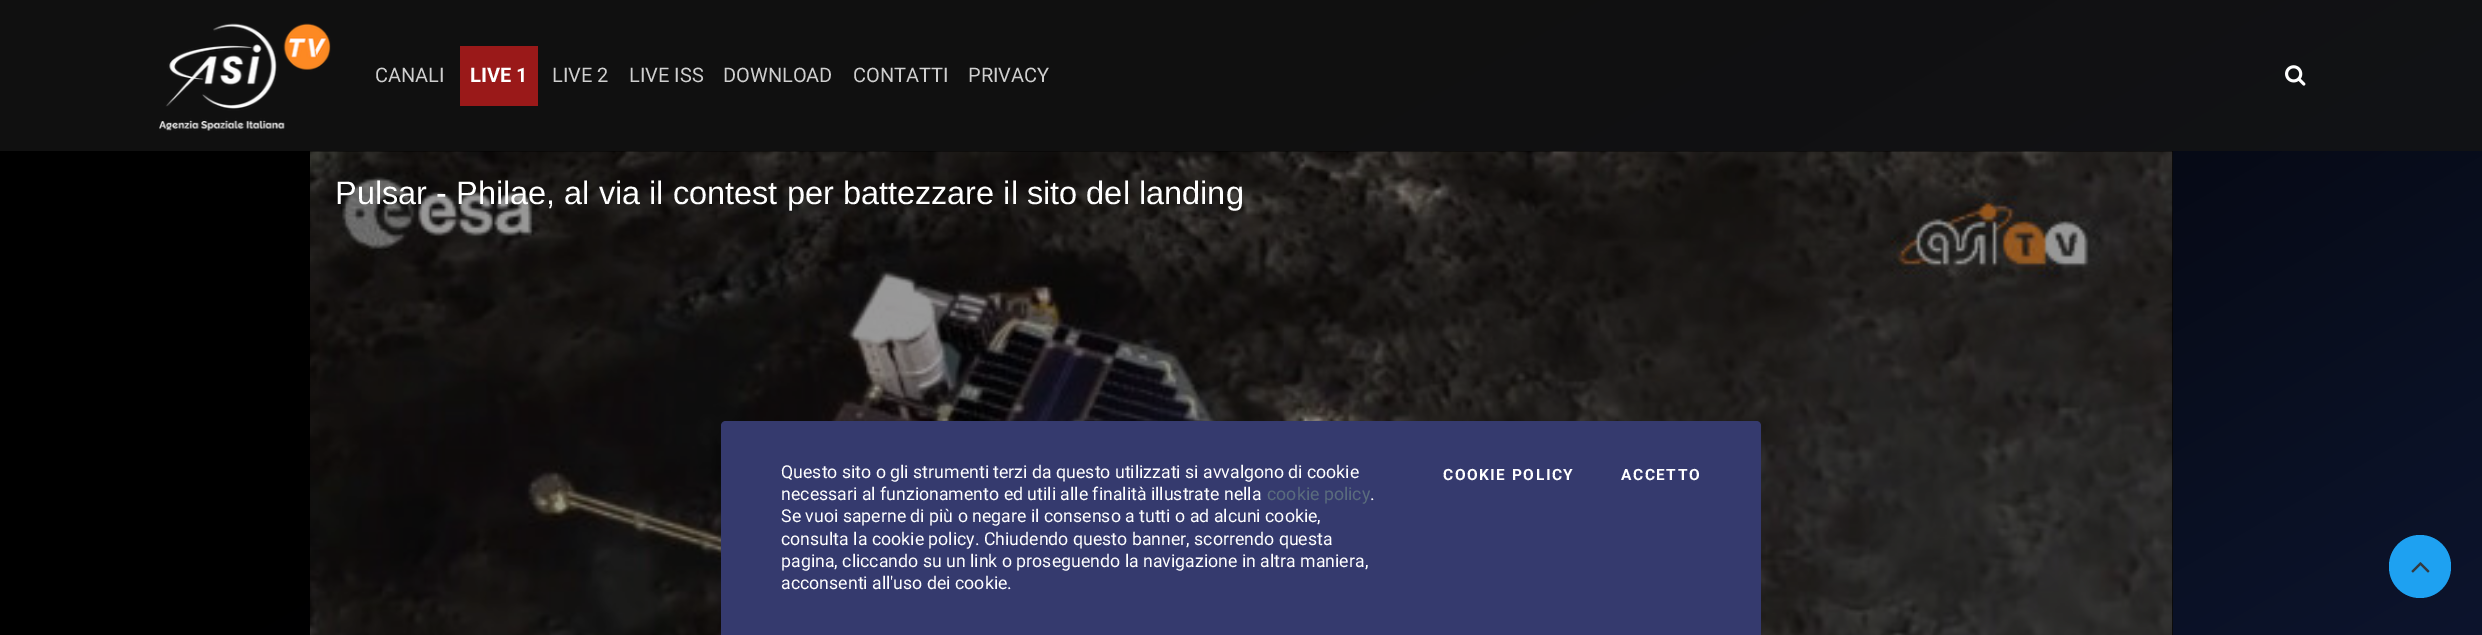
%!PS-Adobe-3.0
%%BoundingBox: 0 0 2482 635
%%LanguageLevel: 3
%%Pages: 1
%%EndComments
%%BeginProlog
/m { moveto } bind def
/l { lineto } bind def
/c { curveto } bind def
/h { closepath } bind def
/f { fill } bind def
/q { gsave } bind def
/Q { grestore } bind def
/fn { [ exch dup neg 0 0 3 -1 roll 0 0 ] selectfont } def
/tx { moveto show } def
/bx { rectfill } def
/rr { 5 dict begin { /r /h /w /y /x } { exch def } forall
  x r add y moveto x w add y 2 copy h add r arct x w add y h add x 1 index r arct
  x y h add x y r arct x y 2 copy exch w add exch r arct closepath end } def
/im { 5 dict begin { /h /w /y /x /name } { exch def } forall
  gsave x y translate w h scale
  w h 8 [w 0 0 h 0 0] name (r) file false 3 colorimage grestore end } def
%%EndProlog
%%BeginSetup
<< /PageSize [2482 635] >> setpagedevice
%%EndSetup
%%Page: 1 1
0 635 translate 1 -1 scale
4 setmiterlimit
1 setgray
0 0 2482 635 bx
q 0 151 m 2482 151 l 2482 635 l 0 635 l h clip newpath
<< /ShadingType 2 /ColorSpace /DeviceRGB /Coords [415 -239 2068 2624] /Extend [true true] /Function << /FunctionType 3 /Domain [0 1] /Functions [<< /FunctionType 2 /Domain [0 1] /C0 [0 0 0] /C1 [0 0 0] /N 1 >> << /FunctionType 2 /Domain [0 1] /C0 [0 0 0] /C1 [0.118 0.188 0.412] /N 1 >>] /Bounds [0.2] /Encode [0 1 0 1] >> >> shfill Q
q 0 0 m 2482 0 l 2482 151 l 0 151 l h clip newpath
<< /ShadingType 2 /ColorSpace /DeviceRGB /Coords [415 -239 2068 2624] /Extend [true true] /Function << /FunctionType 3 /Domain [0 1] /Functions [<< /FunctionType 2 /Domain [0 1] /C0 [0.063 0.063 0.063] /C1 [0.063 0.063 0.063] /N 1 >> << /FunctionType 2 /Domain [0 1] /C0 [0.063 0.063 0.063] /C1 [0.086 0.102 0.145] /N 1 >>] /Bounds [0.2] /Encode [0 1 0 1] >> >> shfill Q
(image0.raw) 159 23 172 108 im
/Roboto-Regular 20 fn
0.812 setgray
(CANALI) 375 82 tx
0.604 0.098 0.098 setrgbcolor
460 46 78 60 bx
/Roboto-Bold 20 fn
1 setgray
(LIVE 1) 470 82 tx
/Roboto-Regular 20 fn
0.812 setgray
(LIVE 2) 552 82 tx
(LIVE ISS) 629 82 tx
(DOWNLOAD) 723 82 tx
(CONTATTI) 853 82 tx
(PRIVACY) 968 82 tx
(image1.raw) 2285 65 21 21 im
0 setgray
350 151 1823 484 bx
(image2.raw) 310 151 1863 484 im
/LiberationSans-Regular 32.5 fn
1 setgray
(Pulsar - Philae, al via il contest per battezzare il sito del landing) 335 204 tx
0.118 0.631 0.945 setrgbcolor
2389 535 62 63 31 rr f
(image3.raw) 2411 562 19 11 im
0.208 0.227 0.431 setrgbcolor
726 421 m 1756 421 l 1759 421 1761 423 1761 426 c 1761 635 l 721 635 l 721 426 l 721 423 723 421 726 421 c h f
/Roboto-Regular 17.75 fn
1 setgray
(Questo sito o gli strumenti terzi da questo utilizzati si avvalgono di cookie) 781 478 tx
(necessari al funzionamento ed utili alle finalità illustrate nella) 781 500 tx
0.353 0.424 0.49 setrgbcolor
(cookie policy) 1267 500 tx
1 setgray
(.) 1370 500 tx
(Se vuoi saperne di più o negare il consenso a tutti o ad alcuni cookie,) 781 522 tx
(consulta la cookie policy. Chiudendo questo banner, scorrendo questa) 781 545 tx
(pagina, cliccando su un link o proseguendo la navigazione in altra maniera,) 781 567 tx
(acconsenti all'uso dei cookie.) 781 589 tx
/Roboto-Bold 15.5 fn
1443 480 m 1.5 0 (COOKIE POLICY) ashow
1621 480 m 1.5 0 (ACCETTO) ashow
showpage
%%EOF
